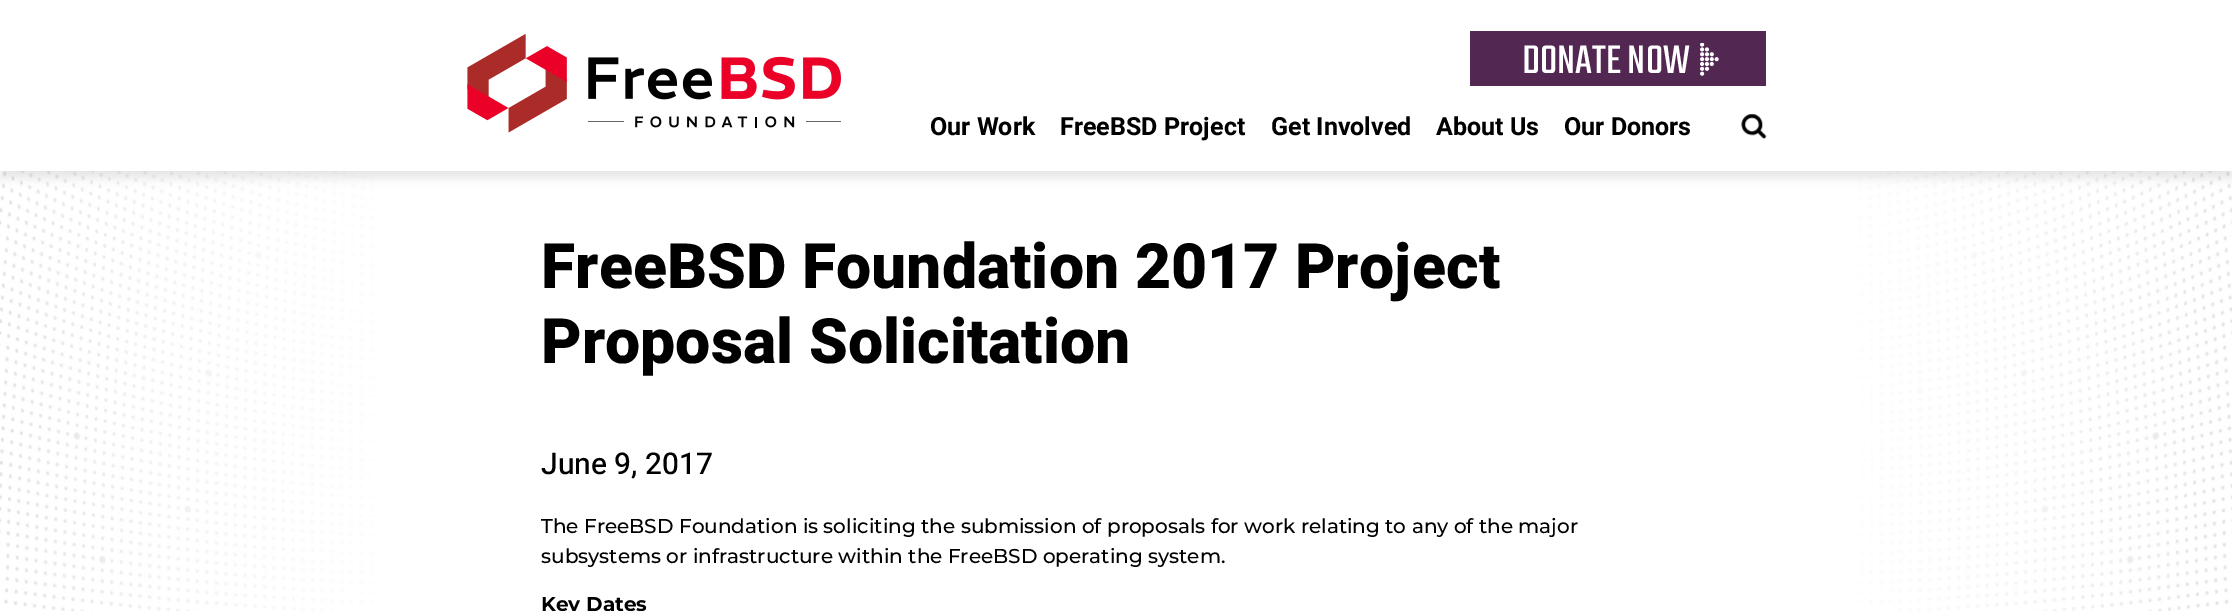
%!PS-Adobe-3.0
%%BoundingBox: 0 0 2232 611
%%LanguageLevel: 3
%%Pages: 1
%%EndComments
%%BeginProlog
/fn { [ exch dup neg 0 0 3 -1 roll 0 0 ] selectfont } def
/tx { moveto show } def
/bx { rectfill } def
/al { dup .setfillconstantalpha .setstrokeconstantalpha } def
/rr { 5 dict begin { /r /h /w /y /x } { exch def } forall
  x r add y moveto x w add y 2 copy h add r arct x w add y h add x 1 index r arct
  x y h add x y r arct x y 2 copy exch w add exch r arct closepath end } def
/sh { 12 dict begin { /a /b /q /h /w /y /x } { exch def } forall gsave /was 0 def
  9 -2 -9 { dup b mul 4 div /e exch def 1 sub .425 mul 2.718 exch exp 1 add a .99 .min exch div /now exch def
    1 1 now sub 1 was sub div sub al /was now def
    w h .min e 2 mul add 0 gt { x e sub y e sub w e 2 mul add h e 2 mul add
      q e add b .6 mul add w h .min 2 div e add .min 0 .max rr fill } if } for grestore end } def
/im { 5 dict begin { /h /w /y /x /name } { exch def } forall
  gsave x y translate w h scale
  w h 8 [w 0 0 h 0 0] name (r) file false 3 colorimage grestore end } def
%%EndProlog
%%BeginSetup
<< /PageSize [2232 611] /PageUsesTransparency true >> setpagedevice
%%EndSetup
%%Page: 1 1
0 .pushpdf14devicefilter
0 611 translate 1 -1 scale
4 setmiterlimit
1 setgray
0 0 2232 611 bx
(image3.raw) 0 171 2232 440 im
0.588 setgray
0 6 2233 172 0 5 0.25 sh
1 setgray
0 0 2232 171 bx
(image0.raw) 467 34 374 99 im
0.322 0.153 0.322 setrgbcolor
1470 31 296 55 bx
(image1.raw) 1700 43 19 33 im
/Teko-Light 44 fn
1 setgray
(DONATE NOW) 1522 73 tx
/Heebo-Bold 25 fn
0 setgray
(Our Work) 930 135 tx
(FreeBSD Project) 1060 135 tx
(Get Involved) 1271 135 tx
(About Us) 1436 135 tx
(Our Donors) 1564 135 tx
(image2.raw) 1741 114 26 25 im
/Heebo-ExtraBold 62.5 fn
(FreeBSD Foundation 2017 Project) 541 288 tx
(Proposal Solicitation) 541 363 tx
/Heebo-Medium 30 fn
(June 9, 2017) 541 474 tx
/Montserrat-Medium 20 fn
(The FreeBSD Foundation is soliciting the submission of proposals for work relating to any of the major) 541 533 tx
(subsystems or infrastructure within the FreeBSD operating system.) 541 563 tx
/Montserrat-Bold 20 fn
(Key Dates) 541 611 tx
.poppdf14devicefilter showpage
%%EOF
